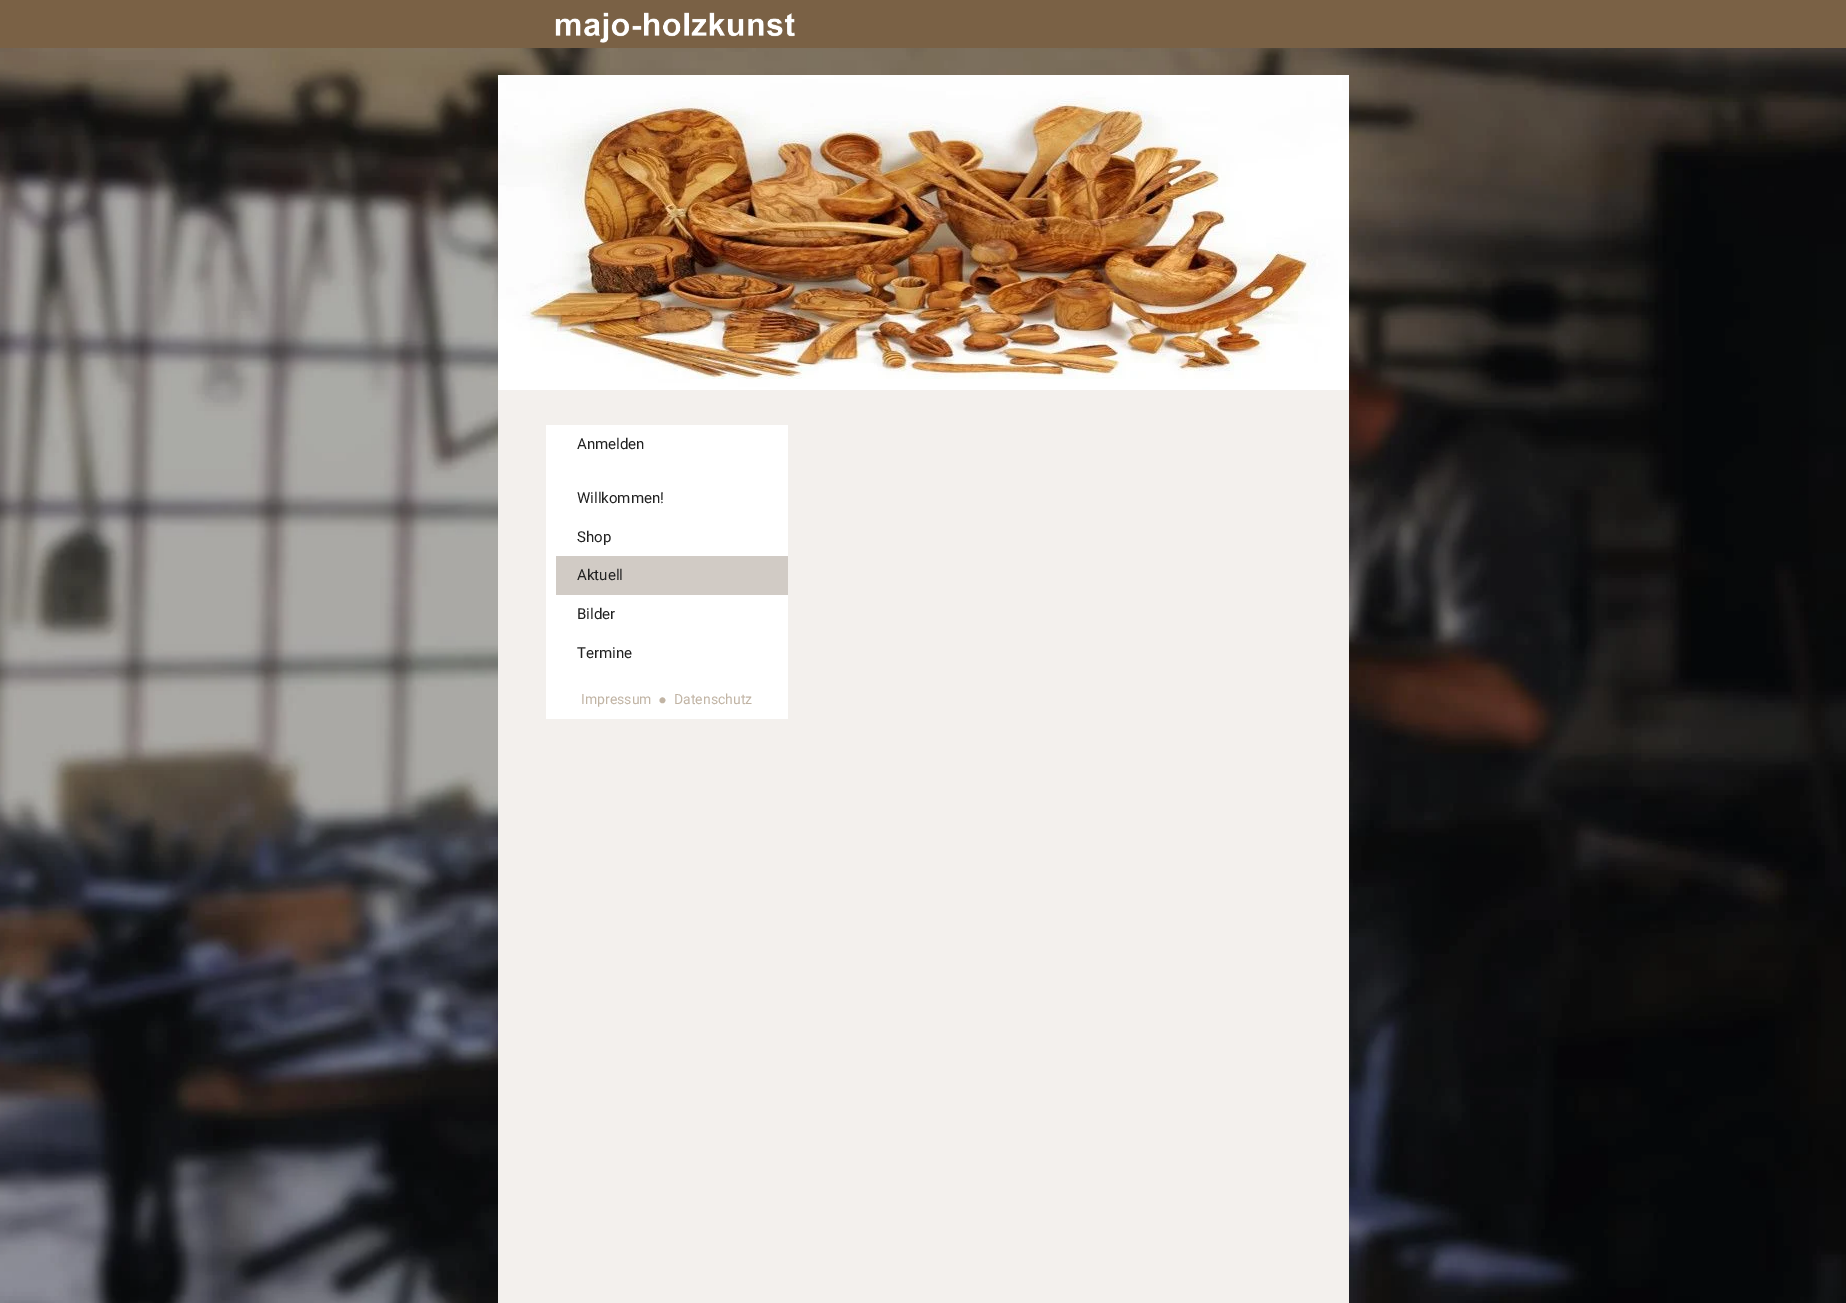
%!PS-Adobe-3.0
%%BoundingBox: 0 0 1846 1303
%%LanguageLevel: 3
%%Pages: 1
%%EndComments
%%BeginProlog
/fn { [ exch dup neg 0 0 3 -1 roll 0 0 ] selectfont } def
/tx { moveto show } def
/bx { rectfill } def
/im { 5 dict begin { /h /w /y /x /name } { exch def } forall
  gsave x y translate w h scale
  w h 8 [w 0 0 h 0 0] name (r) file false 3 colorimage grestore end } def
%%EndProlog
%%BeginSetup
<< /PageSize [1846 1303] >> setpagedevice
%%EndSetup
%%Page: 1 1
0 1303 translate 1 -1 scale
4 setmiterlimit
1 setgray
0 0 1846 1303 bx
(image0.raw) 0 48 1846 1255 im
0.478 0.38 0.271 setrgbcolor
0 0 1846 48 bx
(image1.raw) 555 12 240 31 im
(image2.raw) 498 75 851 315 im
0.953 0.941 0.929 setrgbcolor
498 390 851 913 bx
1 setgray
546 425 242 294 bx
/Roboto-Regular 15 fn
0.133 setgray
(Anmelden) 577 449 tx
(Willkommen!) 577 503 tx
(Shop) 577 542 tx
0.82 0.796 0.773 setrgbcolor
556 556 232 39 bx
0.133 setgray
(Aktuell) 577 580 tx
(Bilder) 577 619 tx
(Termine) 577 658 tx
/Roboto-Regular 14 fn
0.757 0.706 0.643 setrgbcolor
(Impressum) 581 704 tx
/FreeSans-Regular 14 fn
(⦁) 659 704 tx
/Roboto-Regular 14 fn
(Datenschutz) 674 704 tx
showpage
%%EOF
